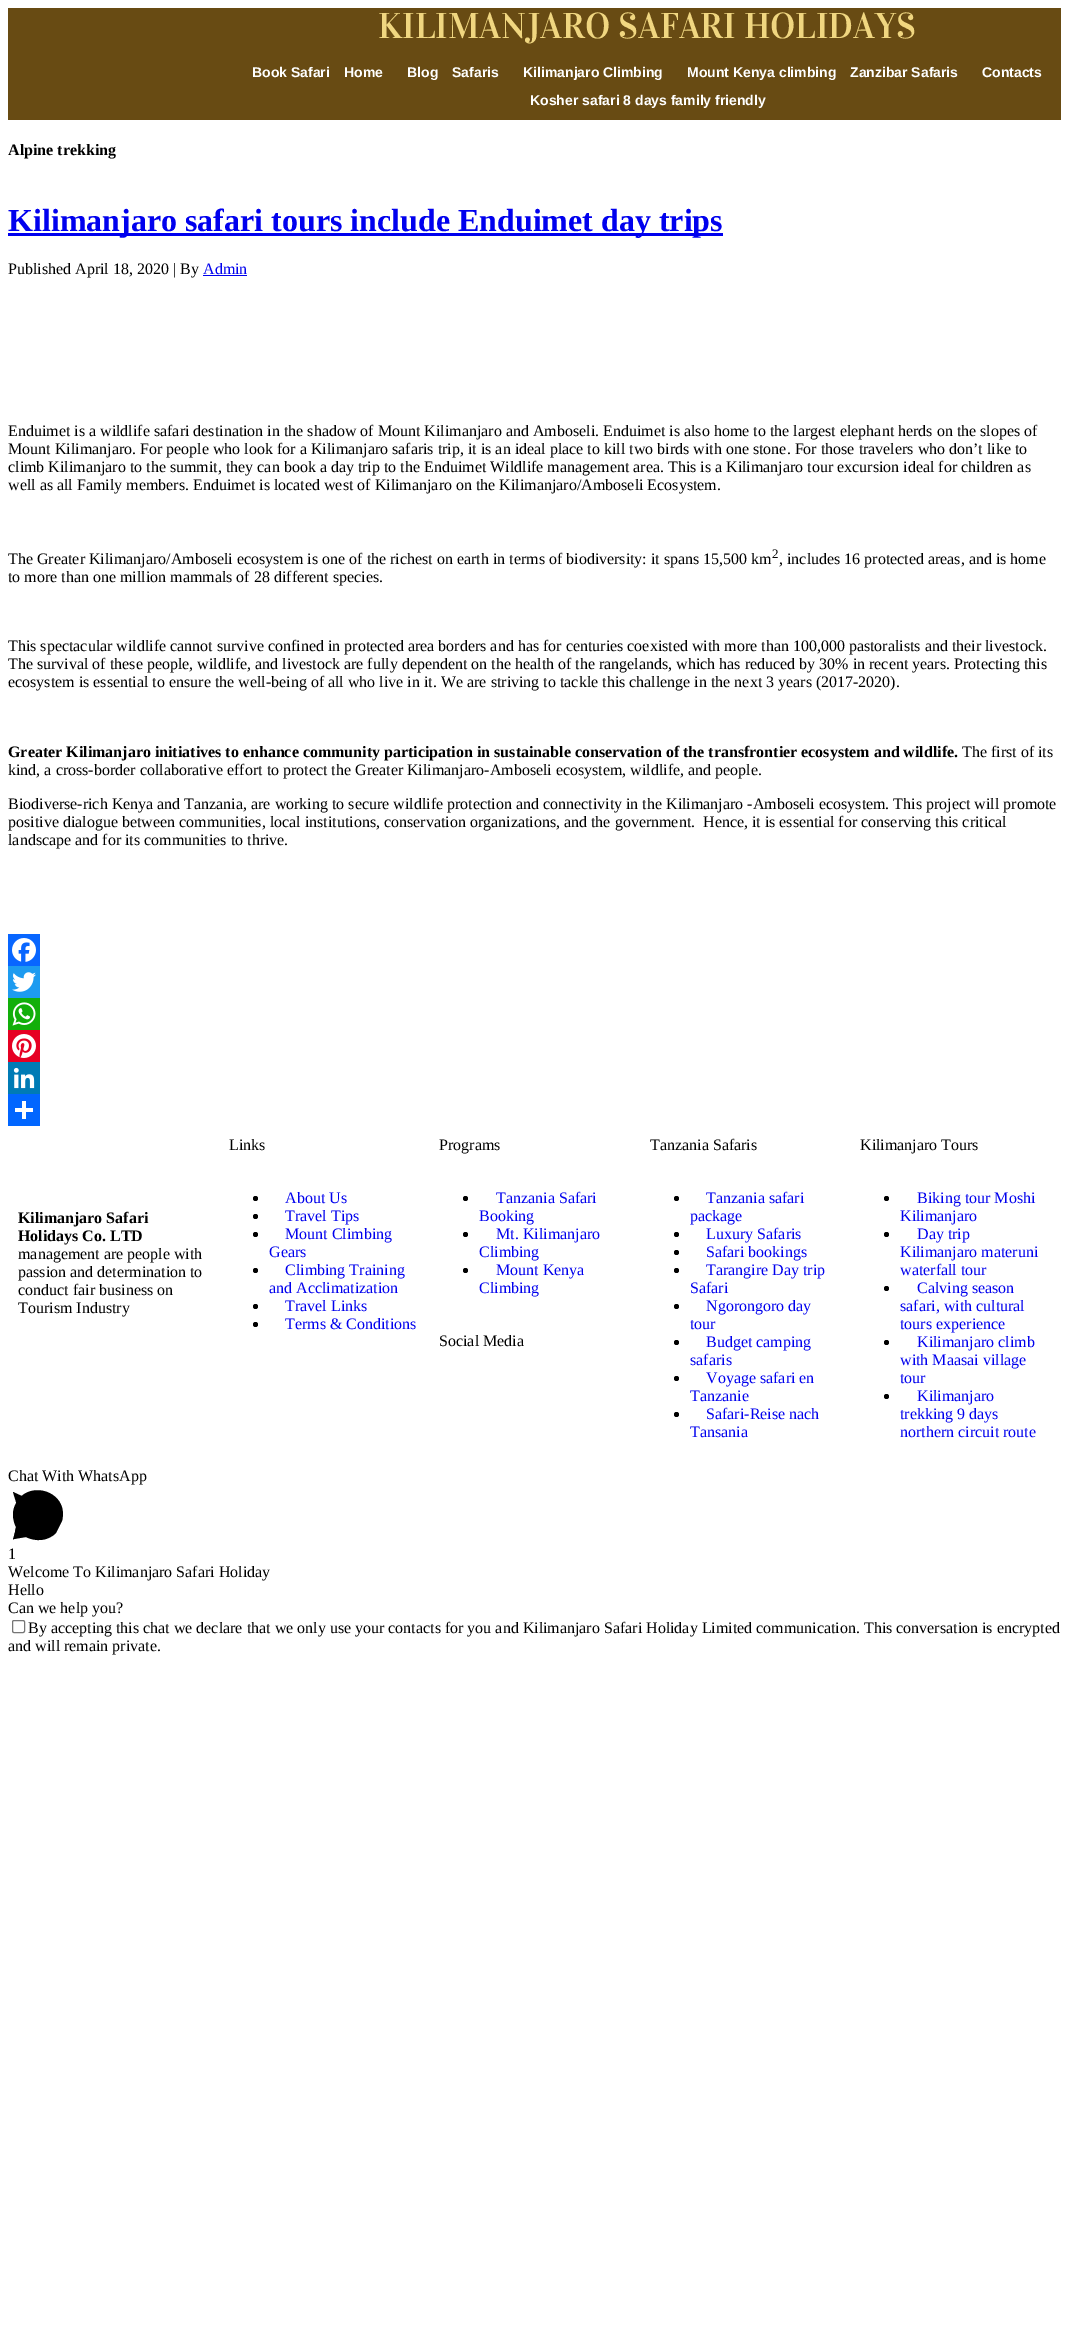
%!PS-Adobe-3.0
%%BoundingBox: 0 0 1069 2341
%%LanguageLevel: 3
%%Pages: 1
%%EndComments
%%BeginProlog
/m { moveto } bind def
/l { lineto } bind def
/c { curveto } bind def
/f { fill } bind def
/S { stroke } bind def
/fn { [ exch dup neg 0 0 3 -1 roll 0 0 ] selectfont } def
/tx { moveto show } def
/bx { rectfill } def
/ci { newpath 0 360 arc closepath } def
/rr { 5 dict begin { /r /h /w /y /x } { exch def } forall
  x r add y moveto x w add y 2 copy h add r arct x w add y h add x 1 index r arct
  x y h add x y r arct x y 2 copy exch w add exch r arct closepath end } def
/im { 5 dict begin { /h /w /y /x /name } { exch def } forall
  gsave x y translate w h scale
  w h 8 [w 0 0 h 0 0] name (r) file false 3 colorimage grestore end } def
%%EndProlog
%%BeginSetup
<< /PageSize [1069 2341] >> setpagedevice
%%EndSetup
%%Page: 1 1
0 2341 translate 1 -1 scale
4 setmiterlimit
1 setgray
0 0 1069 2341 bx
0.408 0.294 0.075 setrgbcolor
8 8 1053 112 bx
/Vidaloka-Regular 36 fn
0.941 0.839 0.502 setrgbcolor
(KILIMANJARO SAFARI HOLIDAYS) 378 38 tx
/LiberationSans-Bold 14 fn
1 setgray
(Book Safari) 252 77 tx
(Home) 344 77 tx
(Blog) 407 77 tx
(Safaris) 452 77 tx
(Kilimanjaro Climbing) 523 77 tx
(Mount Kenya climbing) 687 77 tx
(Zanzibar Safaris) 850 77 tx
(Contacts) 982 77 tx
(Kosher safari 8 days family friendly) 530 105 tx
/LiberationSerif-Bold 16 fn
0 setgray
(Alpine trekking) 8 155 tx
0 0 0.933 setrgbcolor
8 233 715 3 bx
/LiberationSerif-Bold 32 fn
(Kilimanjaro safari tours include Enduimet day trips) 8 231 tx
/LiberationSerif-Regular 16 fn
0 setgray
(Published April 18, 2020 | By) 8 274 tx
0 0 0.933 setrgbcolor
(Admin) 203 274 tx
203 275 44 1 bx
0 setgray
(Enduimet is a wildlife safari destination in the shadow of Mount Kilimanjaro and Amboseli. Enduimet is also home to the largest elephant herds on the slopes of) 8 436 tx
(Mount Kilimanjaro. For people who look for a Kilimanjaro safaris trip, it is an ideal place to kill two birds with one stone. For those travelers who don’t like to) 8 454 tx
(climb Kilimanjaro to the summit, they can book a day trip to the Enduimet Wildlife management area. This is a Kilimanjaro tour excursion ideal for children as) 8 472 tx
(well as all Family members. Enduimet is located west of Kilimanjaro on the Kilimanjaro/Amboseli Ecosystem.) 8 490 tx
(The Greater Kilimanjaro/Amboseli ecosystem is one of the richest on earth in terms of biodiversity: it spans 15,500 km) 8 564 tx
/LiberationSerif-Regular 13 fn
(2) 772 558 tx
/LiberationSerif-Regular 16 fn
(, includes 16 protected areas, and is home) 779 564 tx
(to more than one million mammals of 28 different species.) 8 582 tx
(This spectacular wildlife cannot survive confined in protected area borders and has for centuries coexisted with more than 100,000 pastoralists and their livestock.) 8 651 tx
(The survival of these people, wildlife, and livestock are fully dependent on the health of the rangelands, which has reduced by 30% in recent years. Protecting this) 8 669 tx
(ecosystem is essential to ensure the well-being of all who live in it. We are striving to tackle this challenge in the next 3 years \(2017-2020\).) 8 687 tx
/LiberationSerif-Bold 16 fn
(Greater Kilimanjaro initiatives to enhance community participation in sustainable conservation of the transfrontier ecosystem and wildlife.) 8 757 tx
/LiberationSerif-Regular 16 fn
(The first of its) 962 757 tx
(kind, a cross-border collaborative effort to protect the Greater Kilimanjaro-Amboseli ecosystem, wildlife, and people.) 8 775 tx
(Biodiverse-rich Kenya and Tanzania, are working to secure wildlife protection and connectivity in the Kilimanjaro -Amboseli ecosystem. This project will promote) 8 809 tx
(positive dialogue between communities, local institutions, conservation organizations, and the government.  Hence, it is essential for conserving this critical) 8 827 tx
(landscape and for its communities to thrive.) 8 845 tx
0.031 0.4 1 setrgbcolor
8 934 32 32 bx
(image0.raw) 12 938 24 24 im
0.114 0.608 0.941 setrgbcolor
8 966 32 32 bx
(image1.raw) 12 972 24 20 im
0.071 0.686 0.039 setrgbcolor
8 998 32 32 bx
(image2.raw) 12 1002 24 24 im
0.902 0 0.137 setrgbcolor
8 1030 32 32 bx
(image3.raw) 12 1034 24 24 im
0 0.482 0.71 setrgbcolor
8 1062 32 32 bx
(image4.raw) 13 1067 22 22 im
0.004 0.4 1 setrgbcolor
8 1094 32 32 bx
1 setgray
22 1101 4 18 bx
15 1108 18 4 bx
/LiberationSerif-Bold 16 fn
0 setgray
(Kilimanjaro Safari) 18 1223 tx
(Holidays Co. LTD) 18 1241 tx
/LiberationSerif-Regular 16 fn
(management are people with) 18 1259 tx
(passion and determination to) 18 1277 tx
(conduct fair business on) 18 1295 tx
(Tourism Industry) 18 1313 tx
(Links) 229 1150 tx
255.5 1198.5 2.5 ci f
0 0 0.933 setrgbcolor
(About Us) 285 1203 tx
0 setgray
255.5 1216.5 2.5 ci f
0 0 0.933 setrgbcolor
(Travel Tips) 285 1221 tx
0 setgray
255.5 1234.5 2.5 ci f
0 0 0.933 setrgbcolor
(Mount Climbing) 285 1239 tx
(Gears) 269 1257 tx
0 setgray
255.5 1270.5 2.5 ci f
0 0 0.933 setrgbcolor
(Climbing Training) 285 1275 tx
(and Acclimatization) 269 1293 tx
0 setgray
255.5 1306.5 2.5 ci f
0 0 0.933 setrgbcolor
(Travel Links) 285 1311 tx
0 setgray
255.5 1324.5 2.5 ci f
0 0 0.933 setrgbcolor
(Terms & Conditions) 285 1329 tx
0 setgray
(Programs) 439 1150 tx
465.5 1198.5 2.5 ci f
0 0 0.933 setrgbcolor
(Tanzania Safari) 496 1203 tx
(Booking) 479 1221 tx
0 setgray
465.5 1234.5 2.5 ci f
0 0 0.933 setrgbcolor
(Mt. Kilimanjaro) 496 1239 tx
(Climbing) 479 1257 tx
0 setgray
465.5 1270.5 2.5 ci f
0 0 0.933 setrgbcolor
(Mount Kenya) 496 1275 tx
(Climbing) 479 1293 tx
0 setgray
(Social Media) 439 1346 tx
(Tanzania Safaris) 650 1150 tx
676.5 1198.5 2.5 ci f
0 0 0.933 setrgbcolor
(Tanzania safari) 706 1203 tx
(package) 690 1221 tx
0 setgray
676.5 1234.5 2.5 ci f
0 0 0.933 setrgbcolor
(Luxury Safaris) 706 1239 tx
0 setgray
676.5 1252.5 2.5 ci f
0 0 0.933 setrgbcolor
(Safari bookings) 706 1257 tx
0 setgray
676.5 1270.5 2.5 ci f
0 0 0.933 setrgbcolor
(Tarangire Day trip) 706 1275 tx
(Safari) 690 1293 tx
0 setgray
676.5 1306.5 2.5 ci f
0 0 0.933 setrgbcolor
(Ngorongoro day) 706 1311 tx
(tour) 690 1329 tx
0 setgray
676.5 1342.5 2.5 ci f
0 0 0.933 setrgbcolor
(Budget camping) 706 1347 tx
(safaris) 690 1365 tx
0 setgray
676.5 1378.5 2.5 ci f
0 0 0.933 setrgbcolor
(Voyage safari en) 706 1383 tx
(Tanzanie) 690 1401 tx
0 setgray
676.5 1414.5 2.5 ci f
0 0 0.933 setrgbcolor
(Safari-Reise nach) 706 1419 tx
(Tansania) 690 1437 tx
0 setgray
(Kilimanjaro Tours) 860 1150 tx
886.5 1198.5 2.5 ci f
0 0 0.933 setrgbcolor
(Biking tour Moshi) 917 1203 tx
(Kilimanjaro) 900 1221 tx
0 setgray
886.5 1234.5 2.5 ci f
0 0 0.933 setrgbcolor
(Day trip) 917 1239 tx
(Kilimanjaro materuni) 900 1257 tx
(waterfall tour) 900 1275 tx
0 setgray
886.5 1288.5 2.5 ci f
0 0 0.933 setrgbcolor
(Calving season) 917 1293 tx
(safari, with cultural) 900 1311 tx
(tours experience) 900 1329 tx
0 setgray
886.5 1342.5 2.5 ci f
0 0 0.933 setrgbcolor
(Kilimanjaro climb) 917 1347 tx
(with Maasai village) 900 1365 tx
(tour) 900 1383 tx
0 setgray
886.5 1396.5 2.5 ci f
0 0 0.933 setrgbcolor
(Kilimanjaro) 917 1401 tx
(trekking 9 days) 900 1419 tx
(northern circuit route) 900 1437 tx
0 setgray
(Chat With WhatsApp) 8 1481 tx
33 1515 m 20 1515 l 13 1492 l 63 1515 l 21 1535 l 13 1539 12 1542 14 1536 c 17 1524 l f
56 1533 m 48 1541 36 1542 26 1537 c 14 1539 l 16 1527 l 13 1521 12 1514 14 1508 c 24 1477 70 1490 62 1521 c f
(1) 8 1559 tx
(Welcome To Kilimanjaro Safari Holiday) 8 1577 tx
(Hello) 8 1595 tx
(Can we help you?) 8 1613 tx
0.463 setgray
12.5 1620.5 12 12 1.5 rr S
0 setgray
(By accepting this chat we declare that we only use your contacts for you and Kilimanjaro Safari Holiday Limited communication. This conversation is encrypted) 28 1633 tx
(and will remain private.) 8 1651 tx
showpage
%%EOF
